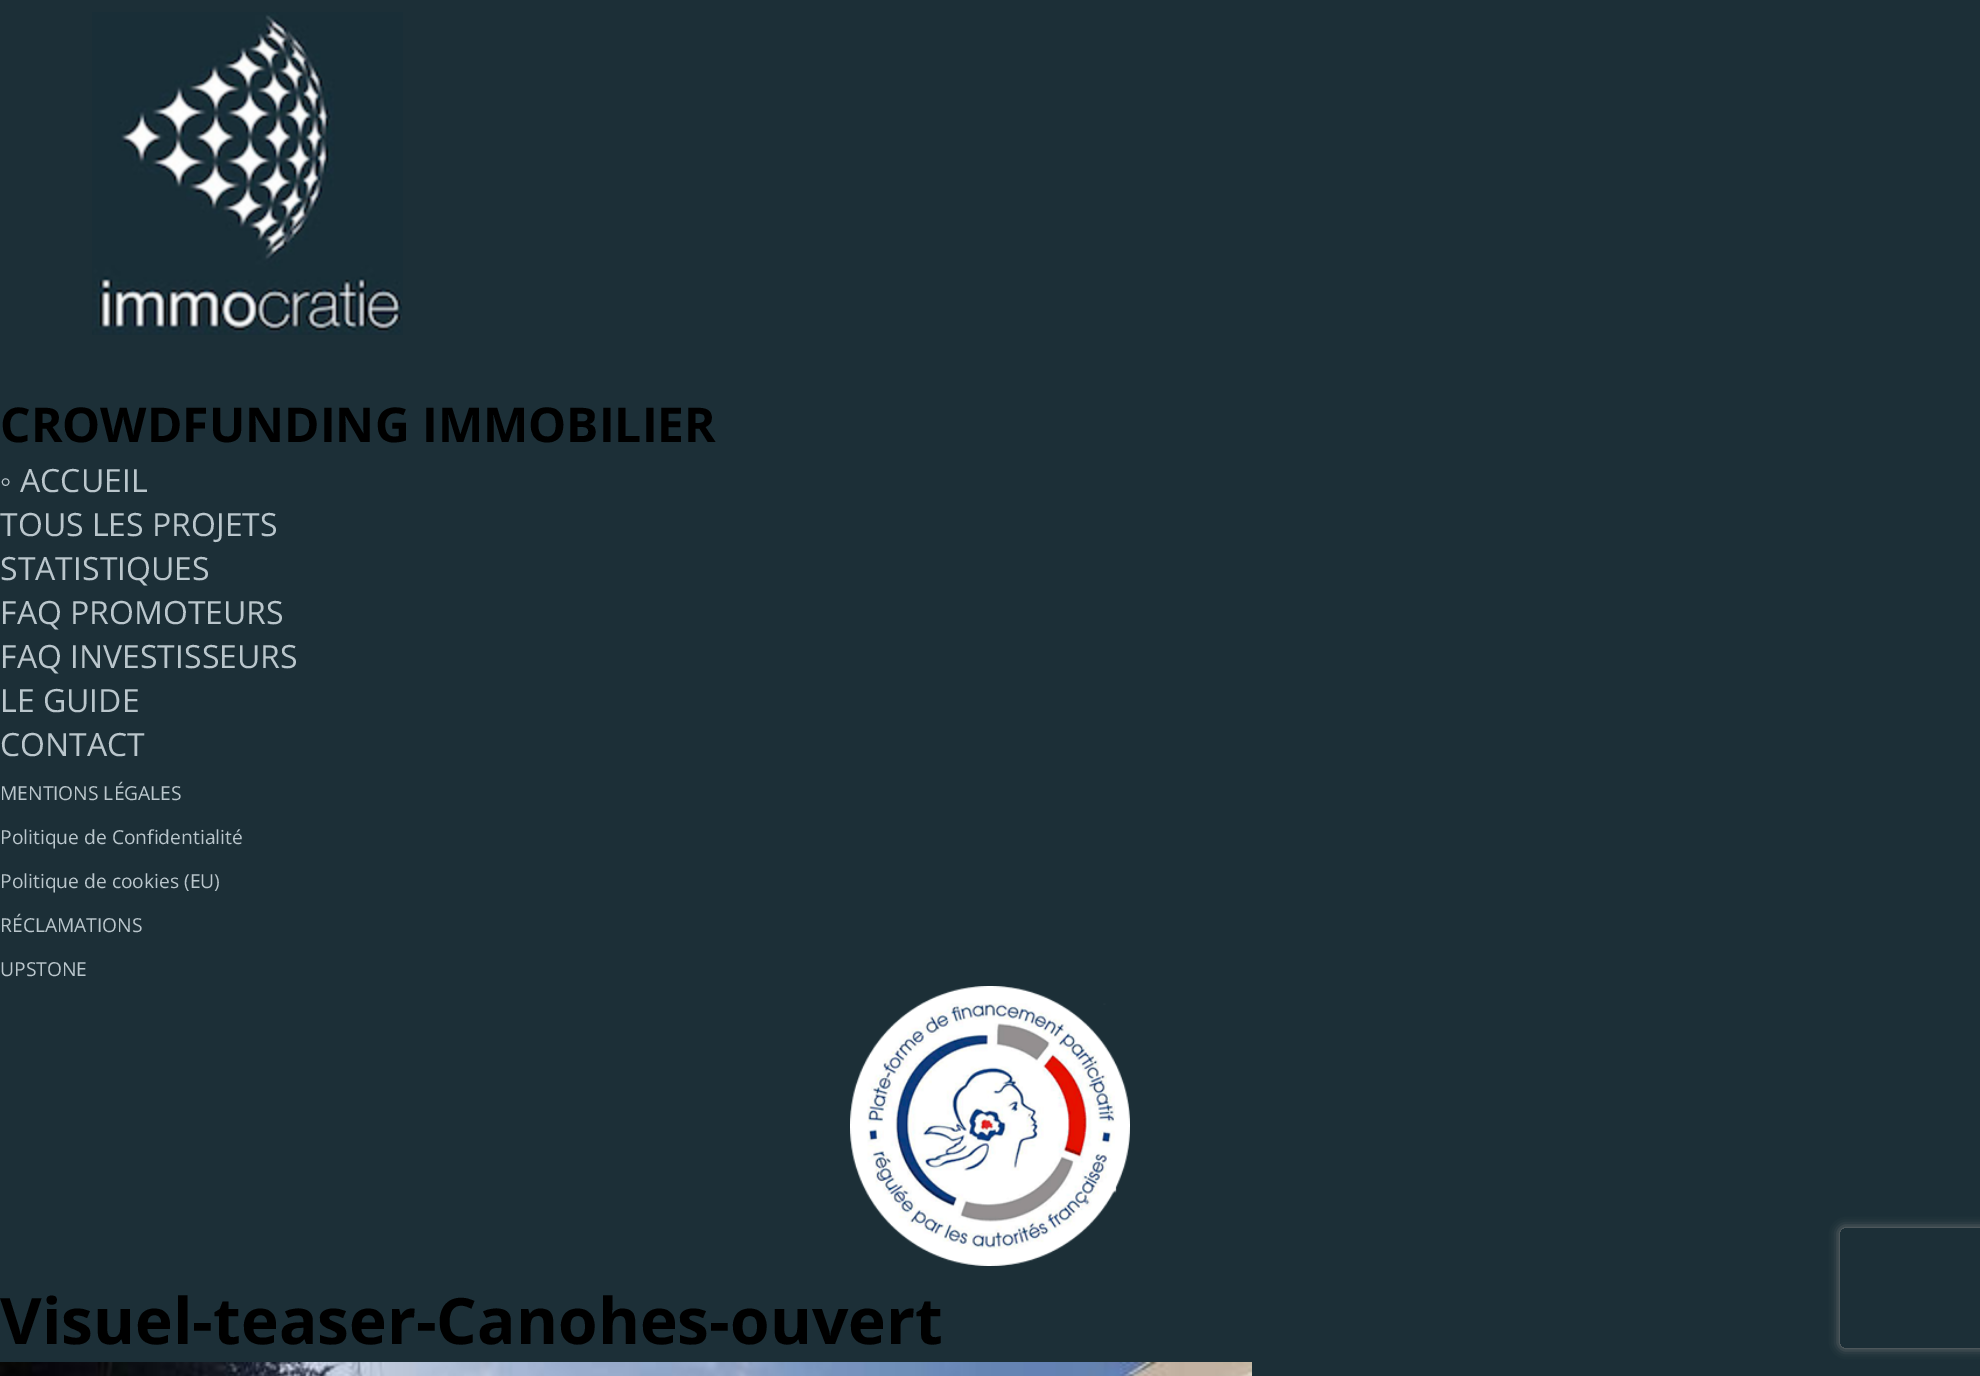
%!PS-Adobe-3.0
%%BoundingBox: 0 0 1980 1376
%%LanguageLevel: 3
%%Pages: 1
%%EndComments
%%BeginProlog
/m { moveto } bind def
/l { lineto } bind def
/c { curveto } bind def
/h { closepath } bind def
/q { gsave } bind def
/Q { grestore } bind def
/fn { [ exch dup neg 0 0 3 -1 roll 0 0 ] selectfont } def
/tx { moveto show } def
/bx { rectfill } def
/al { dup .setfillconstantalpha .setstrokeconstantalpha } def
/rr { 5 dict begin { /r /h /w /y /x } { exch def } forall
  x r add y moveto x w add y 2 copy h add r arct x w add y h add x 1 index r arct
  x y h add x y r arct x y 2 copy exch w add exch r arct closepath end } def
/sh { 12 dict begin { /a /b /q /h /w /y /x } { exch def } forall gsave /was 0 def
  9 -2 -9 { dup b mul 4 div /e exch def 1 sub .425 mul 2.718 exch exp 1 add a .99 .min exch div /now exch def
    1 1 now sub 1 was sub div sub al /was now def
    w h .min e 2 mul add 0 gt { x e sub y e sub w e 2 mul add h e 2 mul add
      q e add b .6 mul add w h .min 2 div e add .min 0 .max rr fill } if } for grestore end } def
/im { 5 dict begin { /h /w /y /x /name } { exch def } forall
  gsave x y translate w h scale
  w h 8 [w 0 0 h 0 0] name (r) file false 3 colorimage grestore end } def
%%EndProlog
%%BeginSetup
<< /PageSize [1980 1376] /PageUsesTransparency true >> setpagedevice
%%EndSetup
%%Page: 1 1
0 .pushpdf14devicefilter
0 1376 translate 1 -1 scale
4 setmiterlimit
0.11 0.184 0.216 setrgbcolor
0 0 1980 1376 bx
(image0.raw) 92 12 311 323 im
/OpenSans-Bold 48 fn
0 setgray
(CROWDFUNDING IMMOBILIER) 0 442 tx
/LiberationSans-Regular 32 fn
0.729 0.776 0.8 setrgbcolor
(◦) 0 492 tx
/OpenSans-Regular 32 fn
(ACCUEIL) 20 492 tx
(TOUS LES PROJETS) 0 536 tx
(STATISTIQUES) 0 580 tx
(FAQ PROMOTEURS) 0 624 tx
(FAQ INVESTISSEURS) 0 668 tx
(LE GUIDE) 0 712 tx
(CONTACT) 0 756 tx
/OpenSans-Regular 19.25 fn
(MENTIONS LÉGALES) 0 800 tx
(Politique de Confidentialité) 0 844 tx
(Politique de cookies \(EU\)) 0 888 tx
(RÉCLAMATIONS) 0 932 tx
(UPSTONE) 0 976 tx
(image1.raw) 850 986 280 280 im
/OpenSans-Bold 64 fn
0 setgray
(Visuel-teaser-Canohes-ouvert) 0 1344 tx
(image2.raw) 0 1362 1252 14 im
q
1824 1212 m 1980 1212 l 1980 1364 l 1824 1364 l h 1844 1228 m 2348 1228 l 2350 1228 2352 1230 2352 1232 c 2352 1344 l 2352 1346 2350 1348 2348 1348 c 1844 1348 l 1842 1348 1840 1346 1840 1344 c 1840 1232 l 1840 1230 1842 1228 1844 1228 c h eoclip newpath
0.502 setgray
1840 1228 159 120 4 5 1 sh
Q
.poppdf14devicefilter showpage
%%EOF
